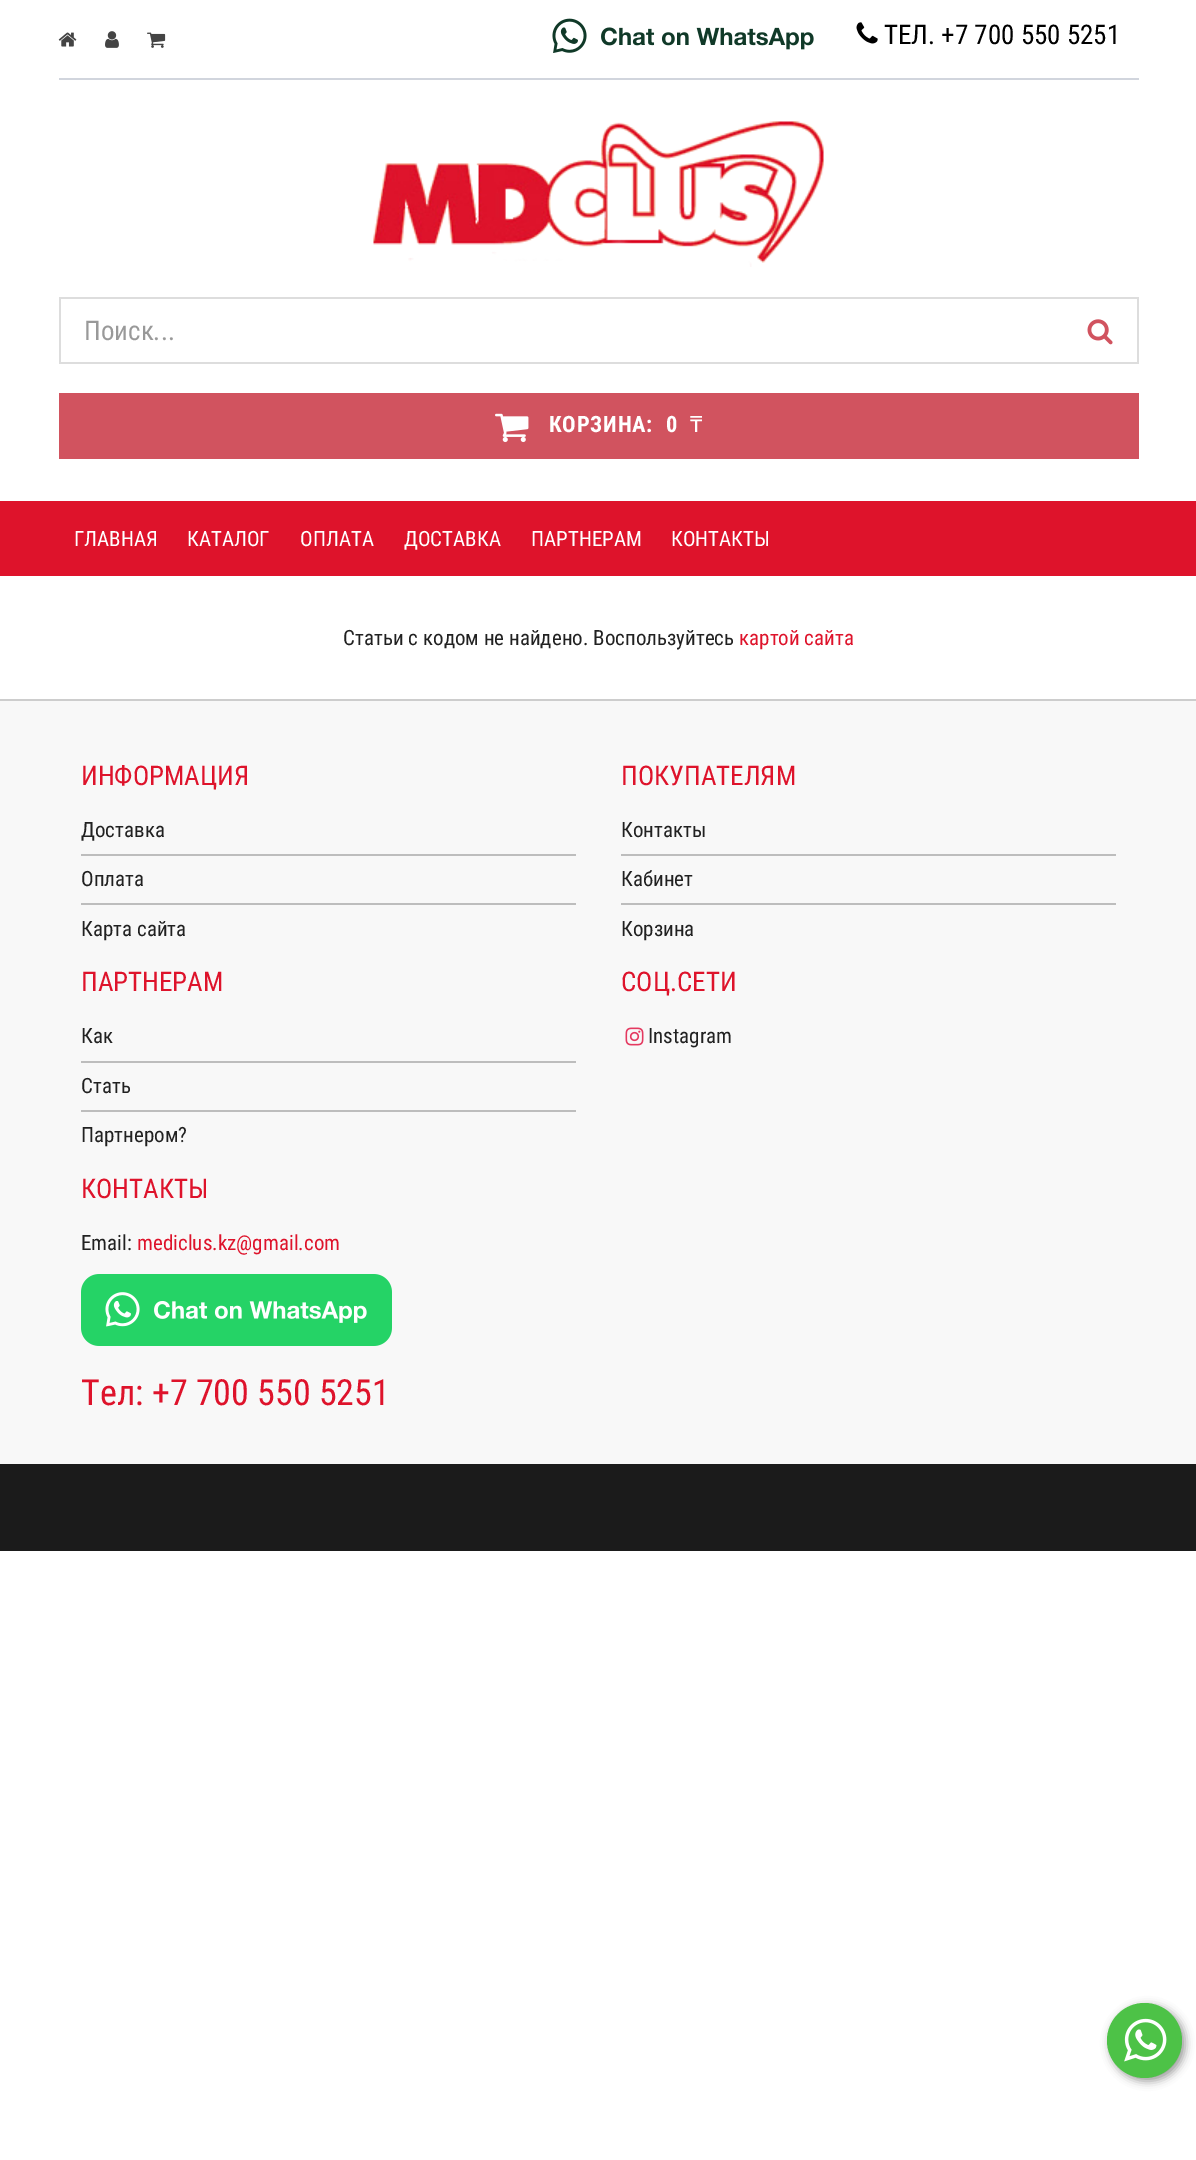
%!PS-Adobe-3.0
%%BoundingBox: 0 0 1196 2160
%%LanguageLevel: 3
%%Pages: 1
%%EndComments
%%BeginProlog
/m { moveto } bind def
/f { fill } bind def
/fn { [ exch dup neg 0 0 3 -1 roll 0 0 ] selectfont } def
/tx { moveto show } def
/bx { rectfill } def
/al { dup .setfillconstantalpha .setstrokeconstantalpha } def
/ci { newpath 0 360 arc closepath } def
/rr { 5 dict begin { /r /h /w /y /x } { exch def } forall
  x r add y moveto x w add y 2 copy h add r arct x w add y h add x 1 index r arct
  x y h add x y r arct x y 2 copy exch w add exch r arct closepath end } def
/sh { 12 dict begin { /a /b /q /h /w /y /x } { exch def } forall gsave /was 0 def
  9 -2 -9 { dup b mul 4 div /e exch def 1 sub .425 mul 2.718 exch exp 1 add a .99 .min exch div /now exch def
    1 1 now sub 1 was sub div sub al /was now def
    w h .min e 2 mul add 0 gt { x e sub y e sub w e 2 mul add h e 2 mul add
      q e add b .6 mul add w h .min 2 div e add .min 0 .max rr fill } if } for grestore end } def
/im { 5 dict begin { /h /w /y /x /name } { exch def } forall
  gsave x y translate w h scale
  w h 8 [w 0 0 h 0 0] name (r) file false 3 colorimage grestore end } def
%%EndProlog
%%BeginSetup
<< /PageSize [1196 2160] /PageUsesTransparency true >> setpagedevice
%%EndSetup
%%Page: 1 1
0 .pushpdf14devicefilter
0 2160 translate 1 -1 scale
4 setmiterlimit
1 setgray
0 0 1196 2160 bx
0.82 0.835 0.867 setrgbcolor
59 78 1080 2 bx
(image0.raw) 58 32 19 15 im
(image1.raw) 105 31 14 17 im
(image2.raw) 147 32 19 16 im
(image3.raw) 552 18 262 35 im
(image4.raw) 856 22 22 22 im
/RobotoCondensed-Regular 27 fn
0 setgray
(ТЕЛ. +7 700 550 5251) 884 44 tx
(image5.raw) 373 121 451 146 im
0.867 setgray
59 297 1080 2 bx
59 362 1006 2 bx
59 297 2 66 bx
0.6 setgray
(Поиск...) 84 340 tx
0.867 setgray
1137 297 2 66 bx
1064 362 75 2 bx
(image6.raw) 1087 319 26 26 im
0.82 0.325 0.373 setrgbcolor
59 393 1080 66 bx
(image7.raw) 495 413 34 30 im
/RobotoCondensed-Bold 22.5 fn
1 setgray
549 432 m 0.75 0 (КОРЗИНА:) ashow
666 432 m 0.75 0 (0) ashow
/NotoSans-Regular 22.5 fn
(₸) 690 432 tx
0.871 0.075 0.169 setrgbcolor
0 501 1196 75 bx
/RobotoCondensed-Regular 21 fn
1 setgray
(ГЛАВНАЯ) 74 546 tx
(КАТАЛОГ) 187 546 tx
(ОПЛАТА) 300 546 tx
(ДОСТАВКА) 404 546 tx
(ПАРТНЕРАМ) 531 546 tx
(КОНТАКТЫ) 671 546 tx
0.129 setgray
(Статьи с кодом не найдено. Воспользуйтесь) 343 645 tx
0.871 0.075 0.169 setrgbcolor
(картой сайта) 739 645 tx
0.973 setgray
0 701 1196 763 bx
0.804 setgray
0 699 1196 2 bx
/RobotoCondensed-Regular 27 fn
0.871 0.075 0.169 setrgbcolor
(ИНФОРМАЦИЯ) 81 785 tx
/RobotoCondensed-Regular 21 fn
0.129 setgray
(Доставка) 81 837 tx
0.741 setgray
81 854 495 2 bx
0.129 setgray
(Оплата) 81 886 tx
0.741 setgray
81 903 495 2 bx
0.129 setgray
(Карта сайта) 81 936 tx
/RobotoCondensed-Regular 27 fn
0.871 0.075 0.169 setrgbcolor
(ПОКУПАТЕЛЯМ) 621 785 tx
/RobotoCondensed-Regular 21 fn
0.129 setgray
(Контакты) 621 837 tx
0.741 setgray
621 854 495 2 bx
0.129 setgray
(Кабинет) 621 886 tx
0.741 setgray
621 903 495 2 bx
0.129 setgray
(Корзина) 621 936 tx
/RobotoCondensed-Regular 27 fn
0.871 0.075 0.169 setrgbcolor
(ПАРТНЕРАМ) 81 991 tx
/RobotoCondensed-Regular 21 fn
0.129 setgray
(Как) 81 1043 tx
0.741 setgray
81 1061 495 2 bx
0.129 setgray
(Стать) 81 1093 tx
0.741 setgray
81 1110 495 2 bx
0.129 setgray
(Партнером?) 81 1142 tx
/RobotoCondensed-Regular 27 fn
0.871 0.075 0.169 setrgbcolor
(CОЦ.СЕТИ) 621 991 tx
(image8.raw) 625 1027 19 19 im
/RobotoCondensed-Regular 21 fn
0.129 setgray
(Instagram) 648 1043 tx
/RobotoCondensed-Regular 27 fn
0.871 0.075 0.169 setrgbcolor
(КОНТАКТЫ) 81 1198 tx
/RobotoCondensed-Regular 21 fn
0.129 setgray
(Email:) 81 1250 tx
0.871 0.075 0.169 setrgbcolor
(mediclus.kz@gmail.com) 137 1250 tx
(image9.raw) 81 1274 311 72 im
/RobotoCondensed-Regular 36 fn
(Тел: +7 700 550 5251) 81 1405 tx
0.106 setgray
0 1464 1196 87 bx
0 setgray
1110 2006 75 75 37.5 4.5 0.4 sh
0.302 0.761 0.278 setrgbcolor
1144.5 2040.5 37.5 ci f
(image10.raw) 1124 2018 43 44 im
.poppdf14devicefilter showpage
%%EOF
